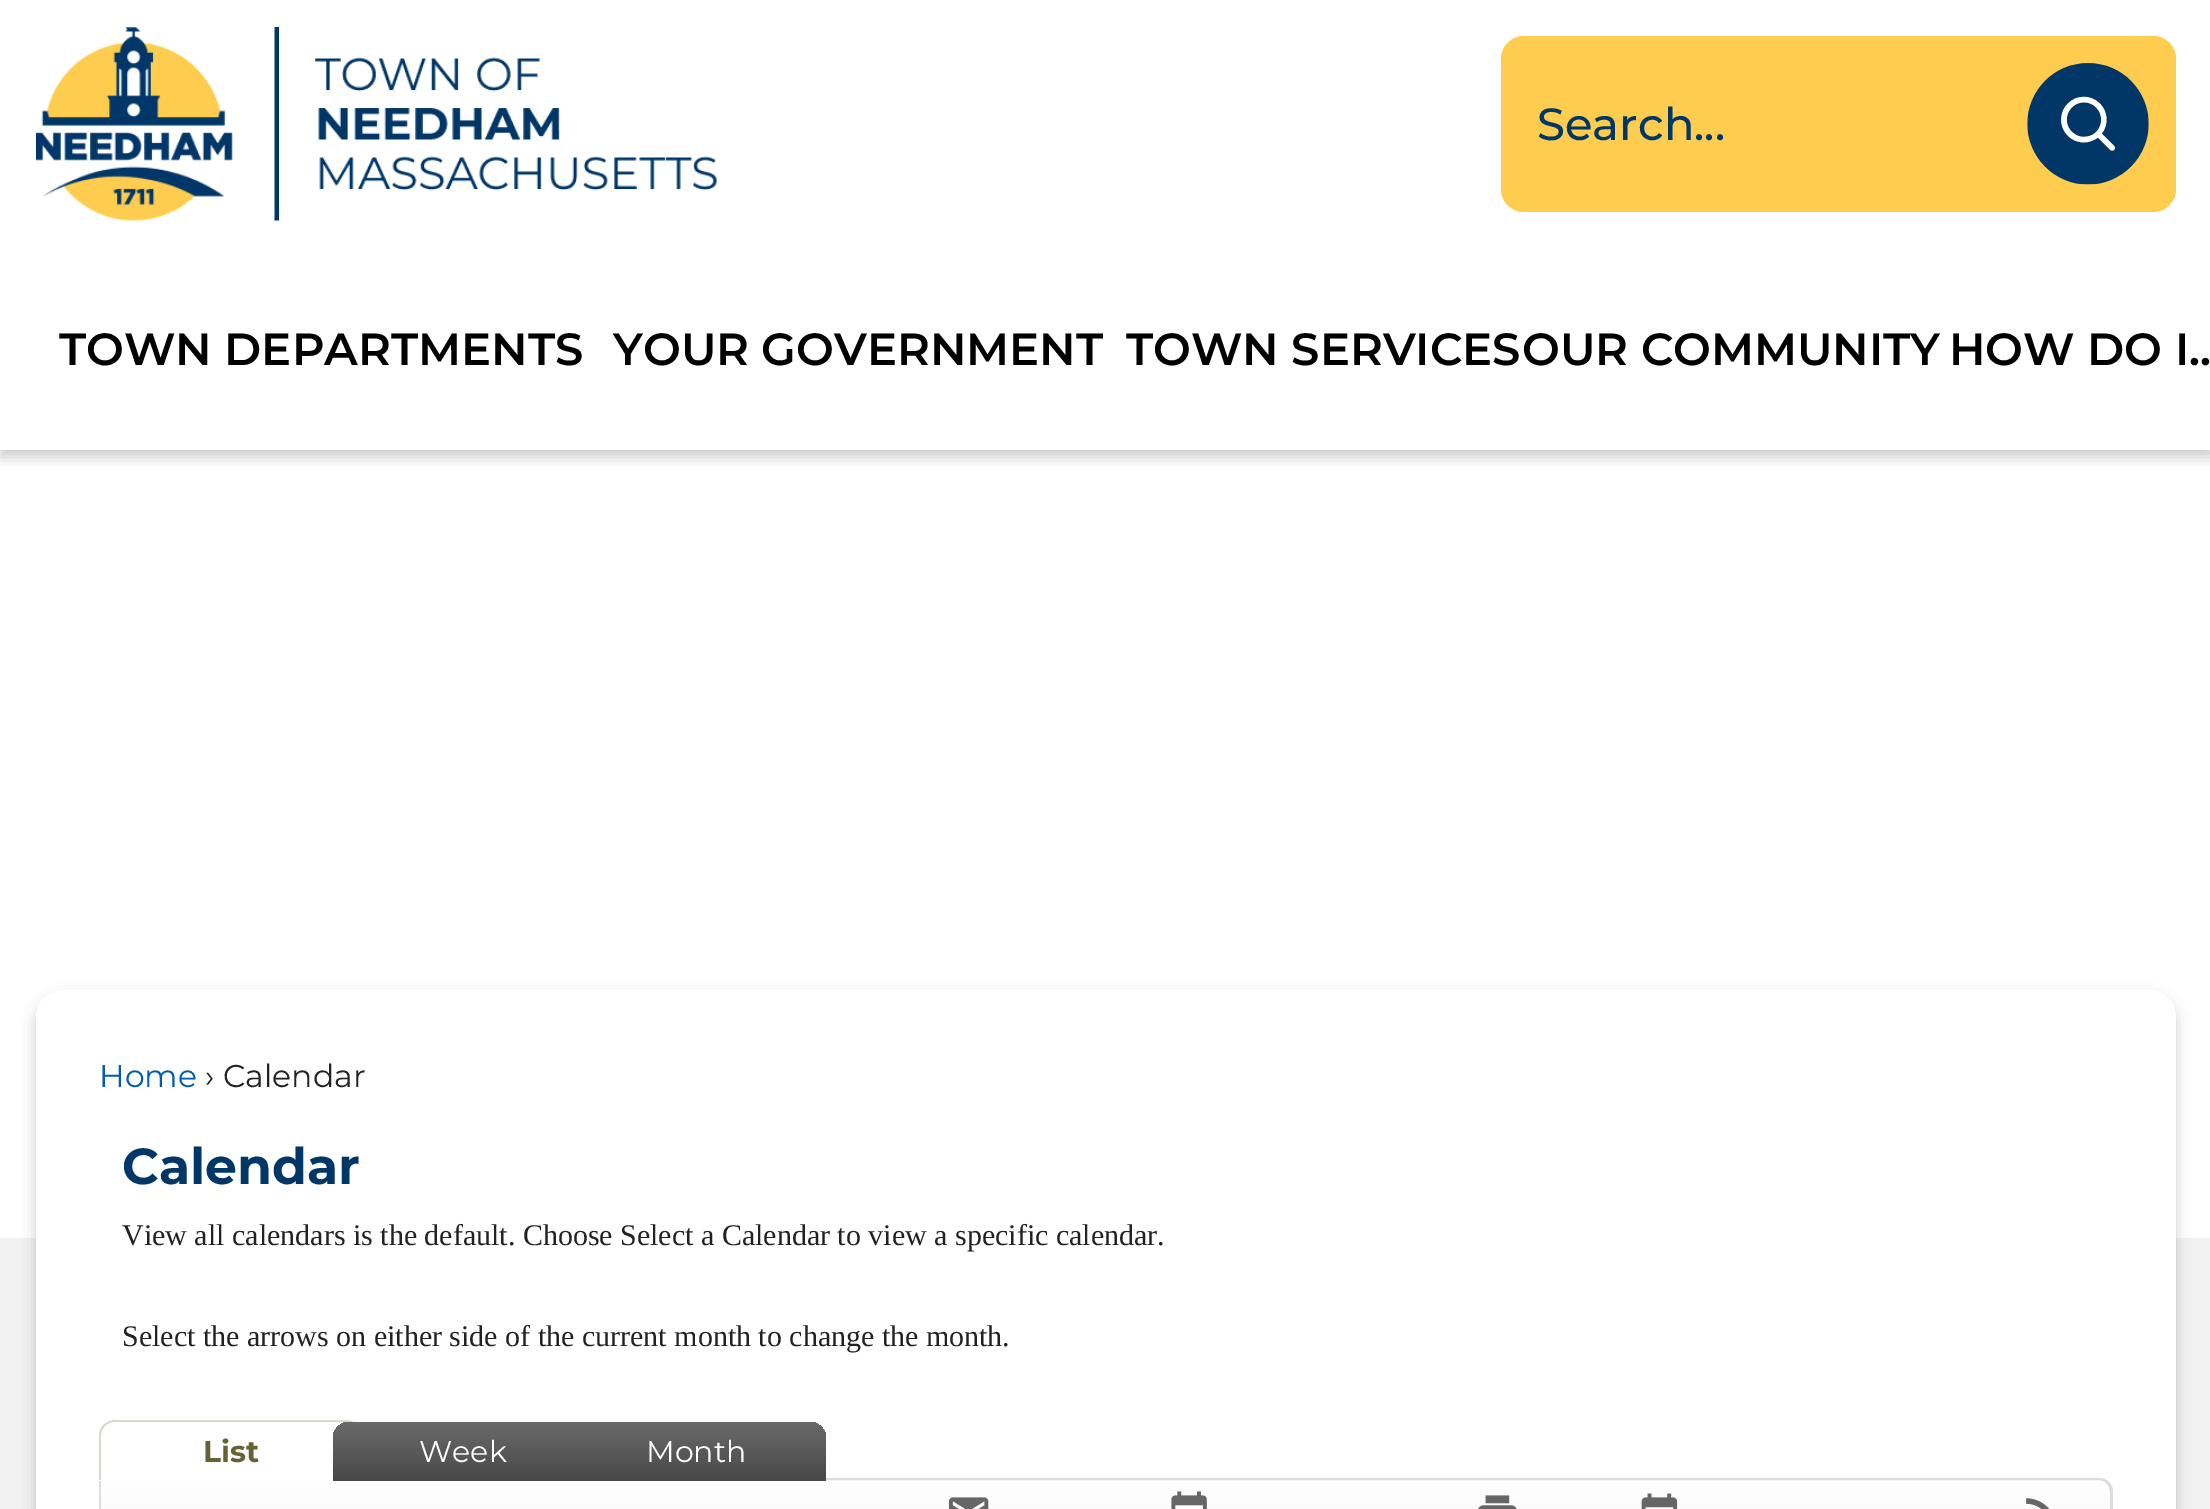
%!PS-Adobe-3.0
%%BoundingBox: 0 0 2210 1509
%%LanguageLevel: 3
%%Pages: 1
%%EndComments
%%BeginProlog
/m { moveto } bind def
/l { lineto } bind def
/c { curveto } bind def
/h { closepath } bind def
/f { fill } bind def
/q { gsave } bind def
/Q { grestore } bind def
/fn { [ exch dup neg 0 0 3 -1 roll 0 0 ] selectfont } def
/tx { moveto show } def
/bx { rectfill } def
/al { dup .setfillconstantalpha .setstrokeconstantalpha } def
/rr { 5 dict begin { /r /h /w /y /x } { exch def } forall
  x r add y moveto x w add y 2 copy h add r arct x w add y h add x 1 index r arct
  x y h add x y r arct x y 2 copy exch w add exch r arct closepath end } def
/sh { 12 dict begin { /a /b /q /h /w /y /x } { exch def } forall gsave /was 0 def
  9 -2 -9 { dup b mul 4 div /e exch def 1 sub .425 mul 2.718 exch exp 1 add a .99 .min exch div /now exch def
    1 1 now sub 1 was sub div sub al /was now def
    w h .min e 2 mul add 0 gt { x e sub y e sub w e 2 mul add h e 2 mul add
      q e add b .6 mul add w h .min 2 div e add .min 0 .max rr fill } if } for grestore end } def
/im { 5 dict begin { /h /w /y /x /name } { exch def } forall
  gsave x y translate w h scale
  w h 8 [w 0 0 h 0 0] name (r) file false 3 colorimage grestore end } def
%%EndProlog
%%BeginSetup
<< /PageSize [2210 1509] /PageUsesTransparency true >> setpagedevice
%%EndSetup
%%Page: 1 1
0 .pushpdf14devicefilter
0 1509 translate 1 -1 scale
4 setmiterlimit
1 setgray
0 0 2210 1509 bx
q
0 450 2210 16 rectclip
0 setgray
0 7 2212 450 0 7 0.2 sh
Q
(image0.raw) 36 27 681 194 im
0.996 0.8 0.306 setrgbcolor
1501 36 675 176 23 rr f
/Montserrat-Medium 45 fn
0 0.216 0.404 setrgbcolor
(Search...) 1537 140 tx
(image1.raw) 2027 63 122 122 im
/Montserrat-SemiBold 45 fn
0 setgray
(TOWN DEPARTMENTS) 59 365 tx
(YOUR GOVERNMENT) 613 365 tx
(TOWN SERVICES) 1126 365 tx
(OUR COMMUNITY) 1522 365 tx
(HOW DO I..) 1949 365 tx
0.949 setgray
0 1238 2210 271 bx
0 setgray
36 997 2140 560 27 7 0.2 sh
1 setgray
36 990 2140 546 27 rr f
/Montserrat-Regular 31.5 fn
0 0.361 0.678 setrgbcolor
(Home) 99 1087 tx
0.133 setgray
(›) 205 1087 tx
(Calendar) 223 1087 tx
/Montserrat-Bold 50.5 fn
0 0.216 0.404 setrgbcolor
(Calendar) 122 1184 tx
/LiberationSerif-Regular 30 fn
0.133 setgray
(View all calendars is the default. Choose Select a Calendar to view a specific calendar.) 122 1245 tx
(Select the arrows on either side of the current month to change the month.) 122 1346 tx
q
99 1478 m 2099 1478 l 2106.5 1478 2113 1484.5 2113 1492 c 2113 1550 l 99 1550 l h clip newpath
q 826 1478 m 2113 1478 l 2113 1481 l 826 1481 l h clip newpath
<< /ShadingType 2 /ColorSpace /DeviceRGB /Coords [1106 1411 1106 1481] /Extend [true true] /Function << /FunctionType 2 /Domain [0 1] /C0 [1 1 1] /C1 [0.965 0.965 0.965] /N 1 >> >> shfill Q
q 101 1481 m 2113 1481 l 2113 1509 l 101 1509 l h clip newpath
<< /ShadingType 2 /ColorSpace /DeviceRGB /Coords [1106 1481 1106 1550] /Extend [true true] /Function << /FunctionType 2 /Domain [0 1] /C0 [1 1 1] /C1 [0.965 0.965 0.965] /N 1 >> >> shfill Q
Q
0.867 setgray
99 1478 m 2099 1478 l 2107 1478 2113 1484 2113 1492 c 2113 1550 l 99 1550 l h 101 1480 m 2099 1480 l 2105 1480 2110 1486 2110 1492 c 2110 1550 l 101 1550 l h eofill
1 setgray
115 1420 m 346 1420 l 355 1420 362 1427 362 1436 c 362 1481 l 99 1481 l 99 1436 l 99 1427 106 1420 115 1420 c h f
0.855 0.847 0.812 setrgbcolor
115 1420 m 346 1420 l 355 1420 362 1427 362 1436 c 362 1480 l 99 1480 l 99 1436 l 99 1427 106 1420 115 1420 c h 115 1422 m 346 1422 l 354 1422 360 1428 360 1436 c 360 1480 l 101 1480 l 101 1436 l 101 1428 107 1422 115 1422 c h eofill
/Montserrat-Bold 30 fn
0.388 0.388 0.212 setrgbcolor
(List) 203 1462 tx
q 349 1422 m 576 1422 l 585 1422 592 1429 592 1438 c 592 1481 l 333 1481 l 333 1438 l 333 1429 340 1422 349 1422 c h clip newpath
<< /ShadingType 2 /ColorSpace /DeviceRGB /Coords [462 1422 462 1481] /Extend [true true] /Function << /FunctionType 2 /Domain [0 1] /C0 [0.42 0.416 0.416] /C1 [0.286 0.282 0.282] /N 1 >> >> shfill Q
/Montserrat-Regular 30 fn
1 setgray
(Week) 419 1462 tx
q 583 1422 m 810 1422 l 819 1422 826 1429 826 1438 c 826 1481 l 567 1481 l 567 1438 l 567 1429 574 1422 583 1422 c h clip newpath
<< /ShadingType 2 /ColorSpace /DeviceRGB /Coords [696 1422 696 1481] /Extend [true true] /Function << /FunctionType 2 /Domain [0 1] /C0 [0.42 0.416 0.416] /C1 [0.286 0.282 0.282] /N 1 >> >> shfill Q
(Month) 646 1462 tx
(image2.raw) 948 1497 41 12 im
(image3.raw) 1171 1491 36 18 im
(image4.raw) 1478 1495 39 14 im
(image5.raw) 1641 1493 37 16 im
(image6.raw) 2026 1498 24 11 im
.poppdf14devicefilter showpage
%%EOF
